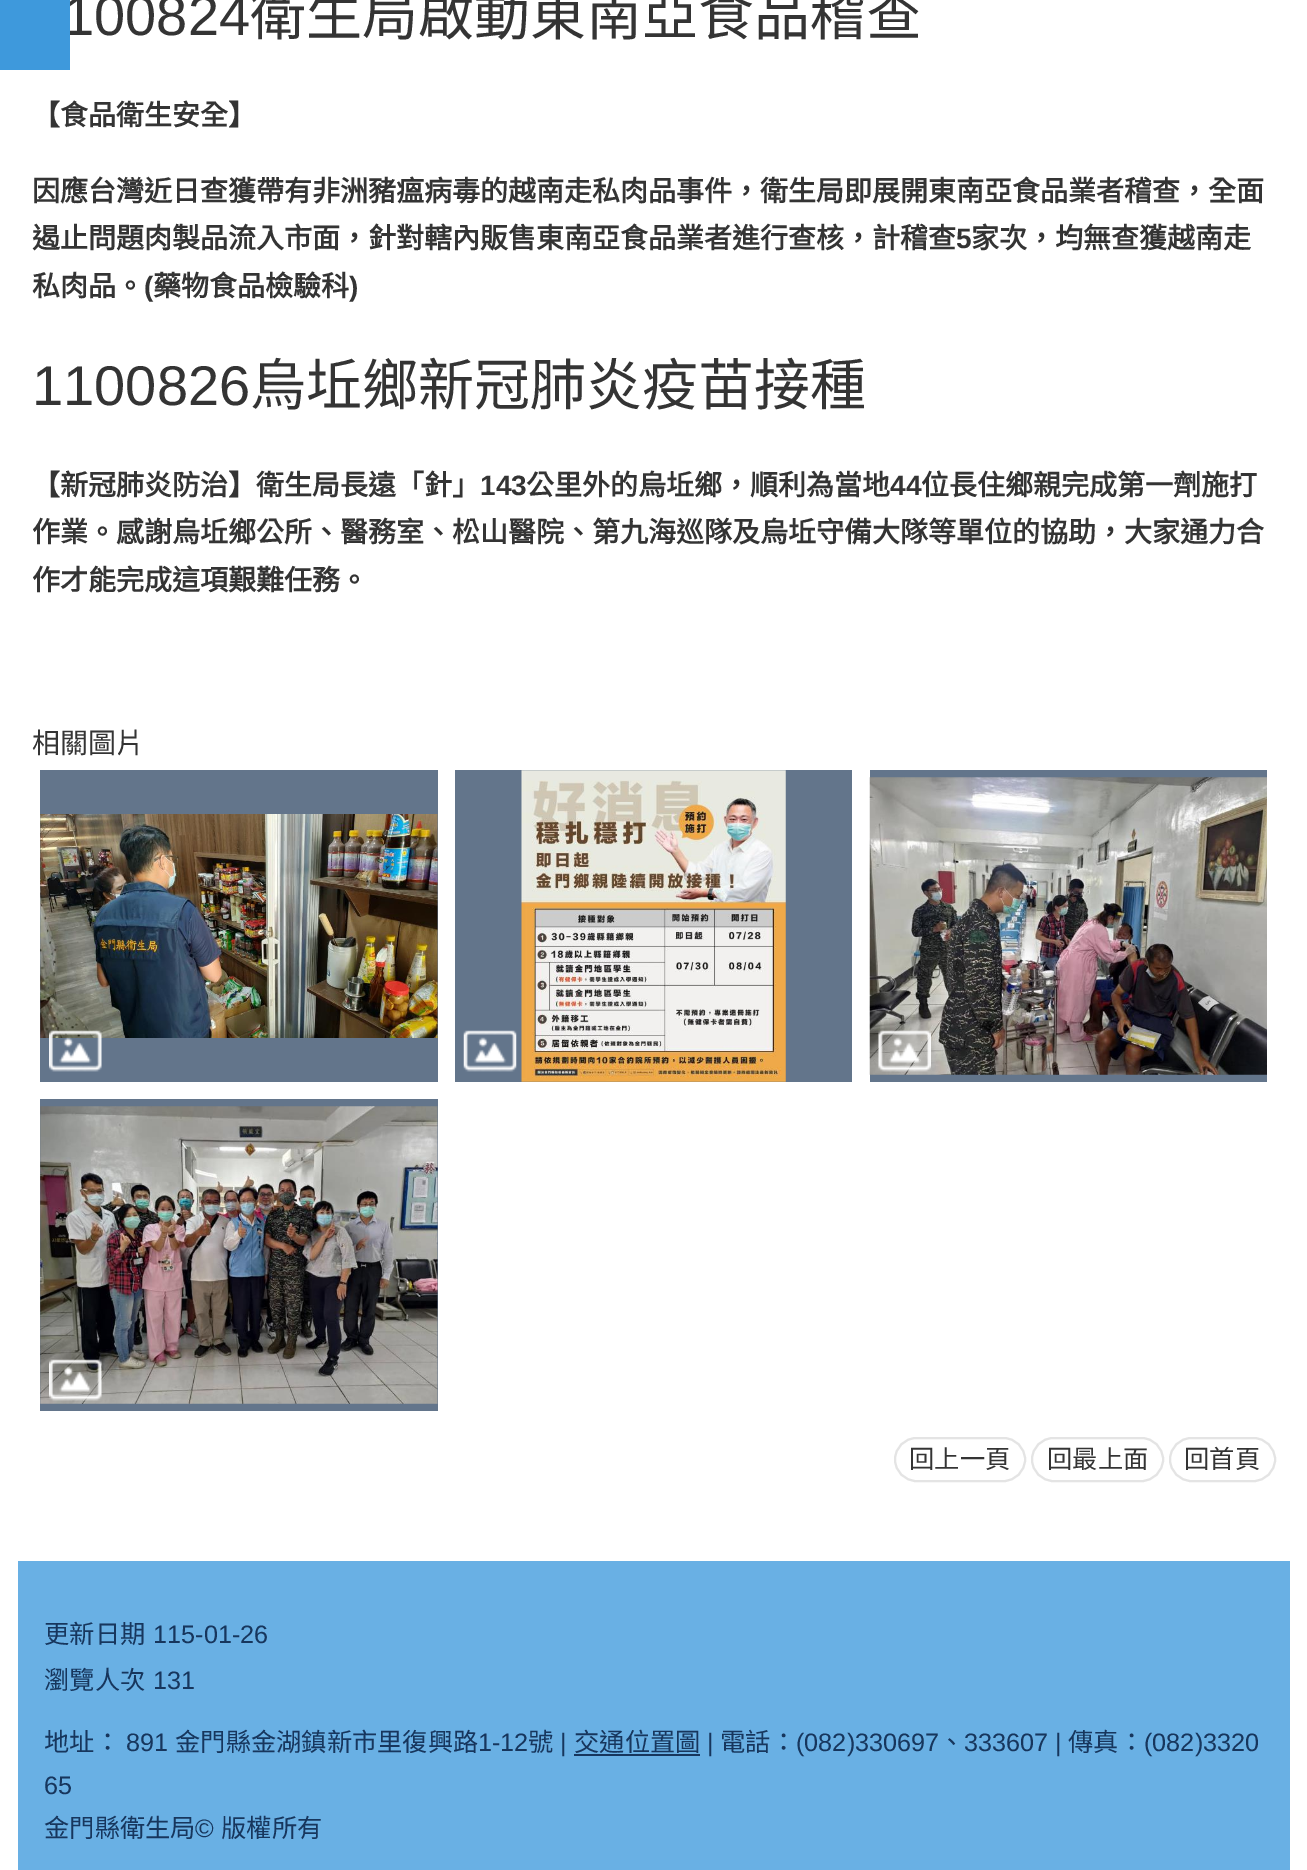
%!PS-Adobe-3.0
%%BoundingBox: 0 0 1307 1870
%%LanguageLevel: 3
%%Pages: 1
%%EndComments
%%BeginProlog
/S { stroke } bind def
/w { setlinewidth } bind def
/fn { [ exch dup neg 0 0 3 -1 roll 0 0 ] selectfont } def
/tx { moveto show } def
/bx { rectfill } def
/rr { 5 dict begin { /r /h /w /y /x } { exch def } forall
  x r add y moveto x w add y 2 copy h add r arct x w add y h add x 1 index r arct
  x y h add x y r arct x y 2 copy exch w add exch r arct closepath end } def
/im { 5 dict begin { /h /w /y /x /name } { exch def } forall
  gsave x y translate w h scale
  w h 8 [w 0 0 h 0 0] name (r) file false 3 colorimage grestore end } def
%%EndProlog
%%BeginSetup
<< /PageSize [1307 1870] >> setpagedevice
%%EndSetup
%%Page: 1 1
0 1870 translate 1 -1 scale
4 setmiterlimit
1 setgray
0 0 1307 1870 bx
/LiberationSans-Regular 56 fn
0.204 setgray
(100824) 63 35 tx
0.243 0.6 0.863 setrgbcolor
0 0 70 70 bx
/NotoSansCJKTC-Regular 56 fn
0.204 setgray
(衛生局啟動東南亞食品稽查) 250 35 tx
/NotoSansCJKTC-Bold 28 fn
(【食品衛生安全】) 32 125 tx
(因應台灣近日查獲帶有非洲豬瘟病毒的越南走私肉品事件，衛生局即展開東南亞食品業者稽查，全面) 32 201 tx
(遏止問題肉製品流入市面，針對轄內販售東南亞食品業者進行查核，計稽查) 32 248 tx
/LiberationSans-Bold 28 fn
(5) 956 248 tx
/NotoSansCJKTC-Bold 28 fn
(家次，均無查獲越南走) 971 248 tx
(私肉品。) 32 296 tx
/LiberationSans-Bold 28 fn
(\() 144 296 tx
/NotoSansCJKTC-Bold 28 fn
(藥物食品檢驗科) 153 296 tx
/LiberationSans-Bold 28 fn
(\)) 349 296 tx
/LiberationSans-Regular 56 fn
(1100826) 32 405 tx
/NotoSansCJKTC-Regular 56 fn
(烏坵鄉新冠肺炎疫苗接種) 250 405 tx
/NotoSansCJKTC-Bold 28 fn
(【新冠肺炎防治】衛生局長遠「針」) 32 495 tx
/LiberationSans-Bold 28 fn
(143) 480 495 tx
/NotoSansCJKTC-Bold 28 fn
(公里外的烏坵鄉，順利為當地) 526 495 tx
/LiberationSans-Bold 28 fn
(44) 890 495 tx
/NotoSansCJKTC-Bold 28 fn
(位長住鄉親完成第一劑施打) 921 495 tx
(作業。感謝烏坵鄉公所、醫務室、松山醫院、第九海巡隊及烏坵守備大隊等單位的協助，大家通力合) 32 542 tx
(作才能完成這項艱難任務。) 32 590 tx
/NotoSansCJKTC-Regular 28 fn
(相關圖片) 32 753 tx
0.388 0.459 0.545 setrgbcolor
40 770 398 312 bx
(image0.raw) 40 814 398 224 im
(image1.raw) 49 1030 53 42 im
455 770 397 312 bx
(image2.raw) 521 770 265 312 im
(image3.raw) 463 1030 54 42 im
870 770 397 312 bx
(image4.raw) 869 777 398 298 im
(image5.raw) 878 1030 53 42 im
40 1099 398 312 bx
(image6.raw) 40 1106 398 298 im
(image7.raw) 49 1359 53 42 im
0.894 setgray
2 w
895 1438 130 43 21.5 rr S
/NotoSansCJKTC-Regular 25.25 fn
0.204 setgray
(回上一頁) 909 1468 tx
0.894 setgray
1032 1438 131 43 21.5 rr S
0.204 setgray
(回最上面) 1047 1468 tx
0.894 setgray
1170 1438 105 43 21.5 rr S
0.204 setgray
(回首頁) 1184 1468 tx
0.412 0.69 0.894 setrgbcolor
18 1561 1272 309 bx
0.09 0.212 0.365 setrgbcolor
(更新日期) 44 1643 tx
/LiberationSans-Regular 25.25 fn
(115-01-26) 153 1643 tx
/NotoSansCJKTC-Regular 25.25 fn
(瀏覽人次) 44 1689 tx
/LiberationSans-Regular 25.25 fn
(131) 153 1689 tx
/NotoSansCJKTC-Regular 25.25 fn
(地址：) 44 1751 tx
/LiberationSans-Regular 25.25 fn
(891) 126 1751 tx
/NotoSansCJKTC-Regular 25.25 fn
(金門縣金湖鎮新市里復興路) 175 1751 tx
/LiberationSans-Regular 25.25 fn
(1-12) 478 1751 tx
/NotoSansCJKTC-Regular 25.25 fn
(號) 528 1751 tx
/LiberationSans-Regular 25.25 fn
(|) 560 1751 tx
/NotoSansCJKTC-Regular 25.25 fn
(交通位置圖) 574 1751 tx
574 1754 126 2 bx
/LiberationSans-Regular 25.25 fn
(|) 707 1751 tx
/NotoSansCJKTC-Regular 25.25 fn
(電話：) 720 1751 tx
/LiberationSans-Regular 25.25 fn
(\(082\)330697) 796 1751 tx
/NotoSansCJKTC-Regular 25.25 fn
(、) 939 1751 tx
/LiberationSans-Regular 25.25 fn
(333607 |) 964 1751 tx
/NotoSansCJKTC-Regular 25.25 fn
(傳真：) 1068 1751 tx
/LiberationSans-Regular 25.25 fn
(\(082\)3320) 1144 1751 tx
(65) 44 1794 tx
/NotoSansCJKTC-Regular 25.25 fn
(金門縣衛生局) 44 1837 tx
/LiberationSans-Regular 25.25 fn
(©) 195 1837 tx
/NotoSansCJKTC-Regular 25.25 fn
(版權所有) 221 1837 tx
showpage
%%EOF
